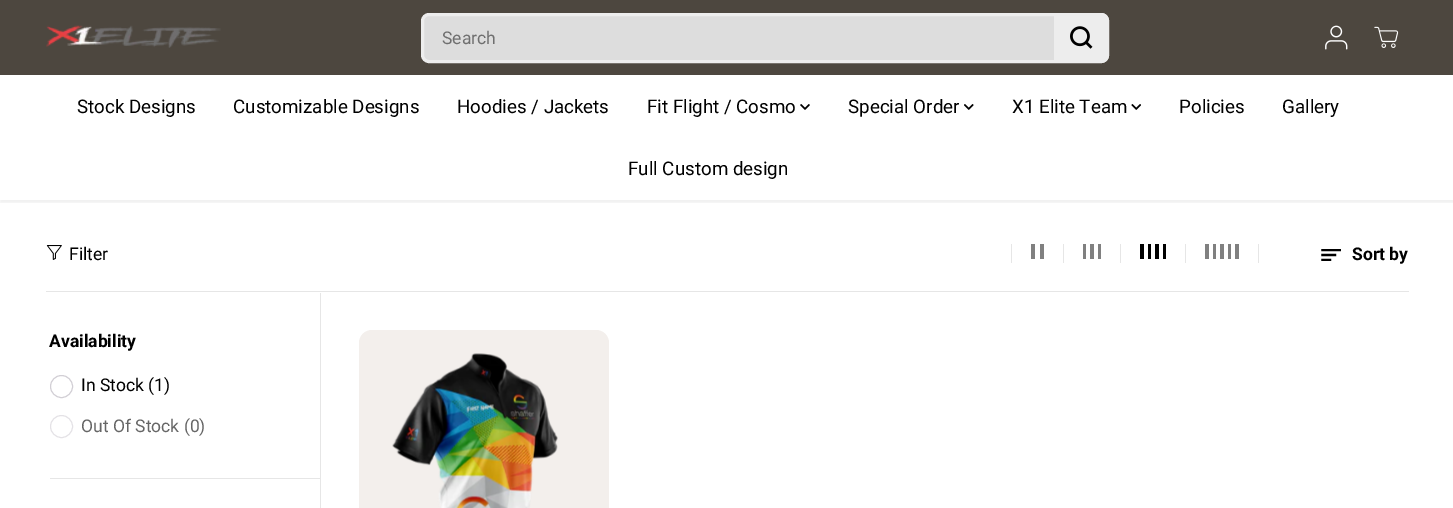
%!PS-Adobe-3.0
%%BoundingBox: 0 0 1453 508
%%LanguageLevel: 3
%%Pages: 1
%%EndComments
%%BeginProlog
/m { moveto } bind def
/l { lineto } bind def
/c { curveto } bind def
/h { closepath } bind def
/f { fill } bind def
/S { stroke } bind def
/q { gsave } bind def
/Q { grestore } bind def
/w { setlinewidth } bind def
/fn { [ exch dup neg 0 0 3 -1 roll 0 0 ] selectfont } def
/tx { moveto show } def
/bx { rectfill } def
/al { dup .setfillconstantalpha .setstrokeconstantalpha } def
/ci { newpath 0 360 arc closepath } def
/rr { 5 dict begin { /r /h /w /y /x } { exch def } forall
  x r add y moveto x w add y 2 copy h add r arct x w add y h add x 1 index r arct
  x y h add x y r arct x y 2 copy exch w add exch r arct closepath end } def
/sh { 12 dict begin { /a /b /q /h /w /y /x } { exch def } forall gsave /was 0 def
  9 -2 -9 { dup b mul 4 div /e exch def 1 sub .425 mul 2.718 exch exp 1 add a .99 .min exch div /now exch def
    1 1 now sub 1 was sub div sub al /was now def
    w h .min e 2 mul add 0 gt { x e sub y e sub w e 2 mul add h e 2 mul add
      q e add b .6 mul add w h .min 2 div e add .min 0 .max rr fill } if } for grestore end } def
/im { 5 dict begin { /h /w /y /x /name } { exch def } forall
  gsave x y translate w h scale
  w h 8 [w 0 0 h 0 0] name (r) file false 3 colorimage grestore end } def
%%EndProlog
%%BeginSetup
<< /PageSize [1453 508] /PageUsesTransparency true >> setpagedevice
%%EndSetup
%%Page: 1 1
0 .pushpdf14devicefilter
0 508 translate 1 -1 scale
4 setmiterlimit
1 setgray
0 0 1453 508 bx
0.302 0.278 0.247 setrgbcolor
0 0 1453 75 bx
q
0 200 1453 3 rectclip
0 setgray
0 3 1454 200 0 1 0.05 sh
Q
(image0.raw) 46 25 175 23 im
0.867 setgray
422.5 14.5 685 47 6.5 rr q f Q
0.929 setgray
3 w
S
/Roboto-Regular 17.5 fn
0.435 setgray
(Search) 442 44 tx
0.929 setgray
1054 13 m 1101 13 l 1105.5 13 1109 16.5 1109 21 c 1109 55 l 1109 59.5 1105.5 63 1101 63 c 1054 63 l h f
(image1.raw) 1070 26 23 23 im
(image2.raw) 1325 25 23 25 im
(image3.raw) 1374 26 25 22 im
/Roboto-Regular 18.75 fn
0 setgray
(Stock Designs) 77 113 tx
(Customizable Designs) 233 113 tx
(Hoodies / Jackets) 457 113 tx
(Fit Flight / Cosmo) 647 113 tx
(image4.raw) 800 104 10 6 im
(Special Order) 848 113 tx
(image5.raw) 964 104 10 6 im
(X1 Elite Team) 1012 113 tx
(image6.raw) 1131 104 10 6 im
(Policies) 1179 113 tx
(Gallery) 1282 113 tx
(Full Custom design) 628 175 tx
0.902 setgray
46 291 1363 1 bx
(image7.raw) 46 245 16 15 im
/Roboto-Regular 17.5 fn
0 setgray
(Filter) 69 260 tx
0.902 setgray
1063 244 1 19 bx
1011 244 1 19 bx
0.502 setgray
1031 244 4 15 bx
1040 244 4 15 bx
0.902 setgray
1120 244 1 19 bx
0.502 setgray
1083 244 3 15 bx
1090 244 4 15 bx
1098 244 3 15 bx
0.902 setgray
1185 244 1 19 bx
0 setgray
1140 244 4 15 bx
1148 244 3 15 bx
1155 244 4 15 bx
1163 244 3 15 bx
0.902 setgray
1258 244 1 19 bx
0.502 setgray
1205 244 4 15 bx
1213 244 3 15 bx
1220 244 4 15 bx
1228 244 3 15 bx
1235 244 4 15 bx
(image8.raw) 1321 249 20 12 im
/Roboto-Bold 17.5 fn
0 setgray
(Sort by) 1352 260 tx
0.902 setgray
320 293 1 215 bx
50 478 270 1 bx
0 setgray
(Availability) 49 347 tx
0.824 0.812 0.835 setrgbcolor
1 w
61.5 386.5 11 ci S
/Roboto-Regular 17.5 fn
0 setgray
(In Stock \(1\)) 81 391 tx
0.894 0.886 0.902 setrgbcolor
61.5 426.5 11 ci S
0.4 setgray
(Out Of Stock \(0\)) 81 432 tx
0.953 0.937 0.925 setrgbcolor
359 330 250 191 13 rr f
(image9.raw) 392 353 166 155 im
.poppdf14devicefilter showpage
%%EOF
